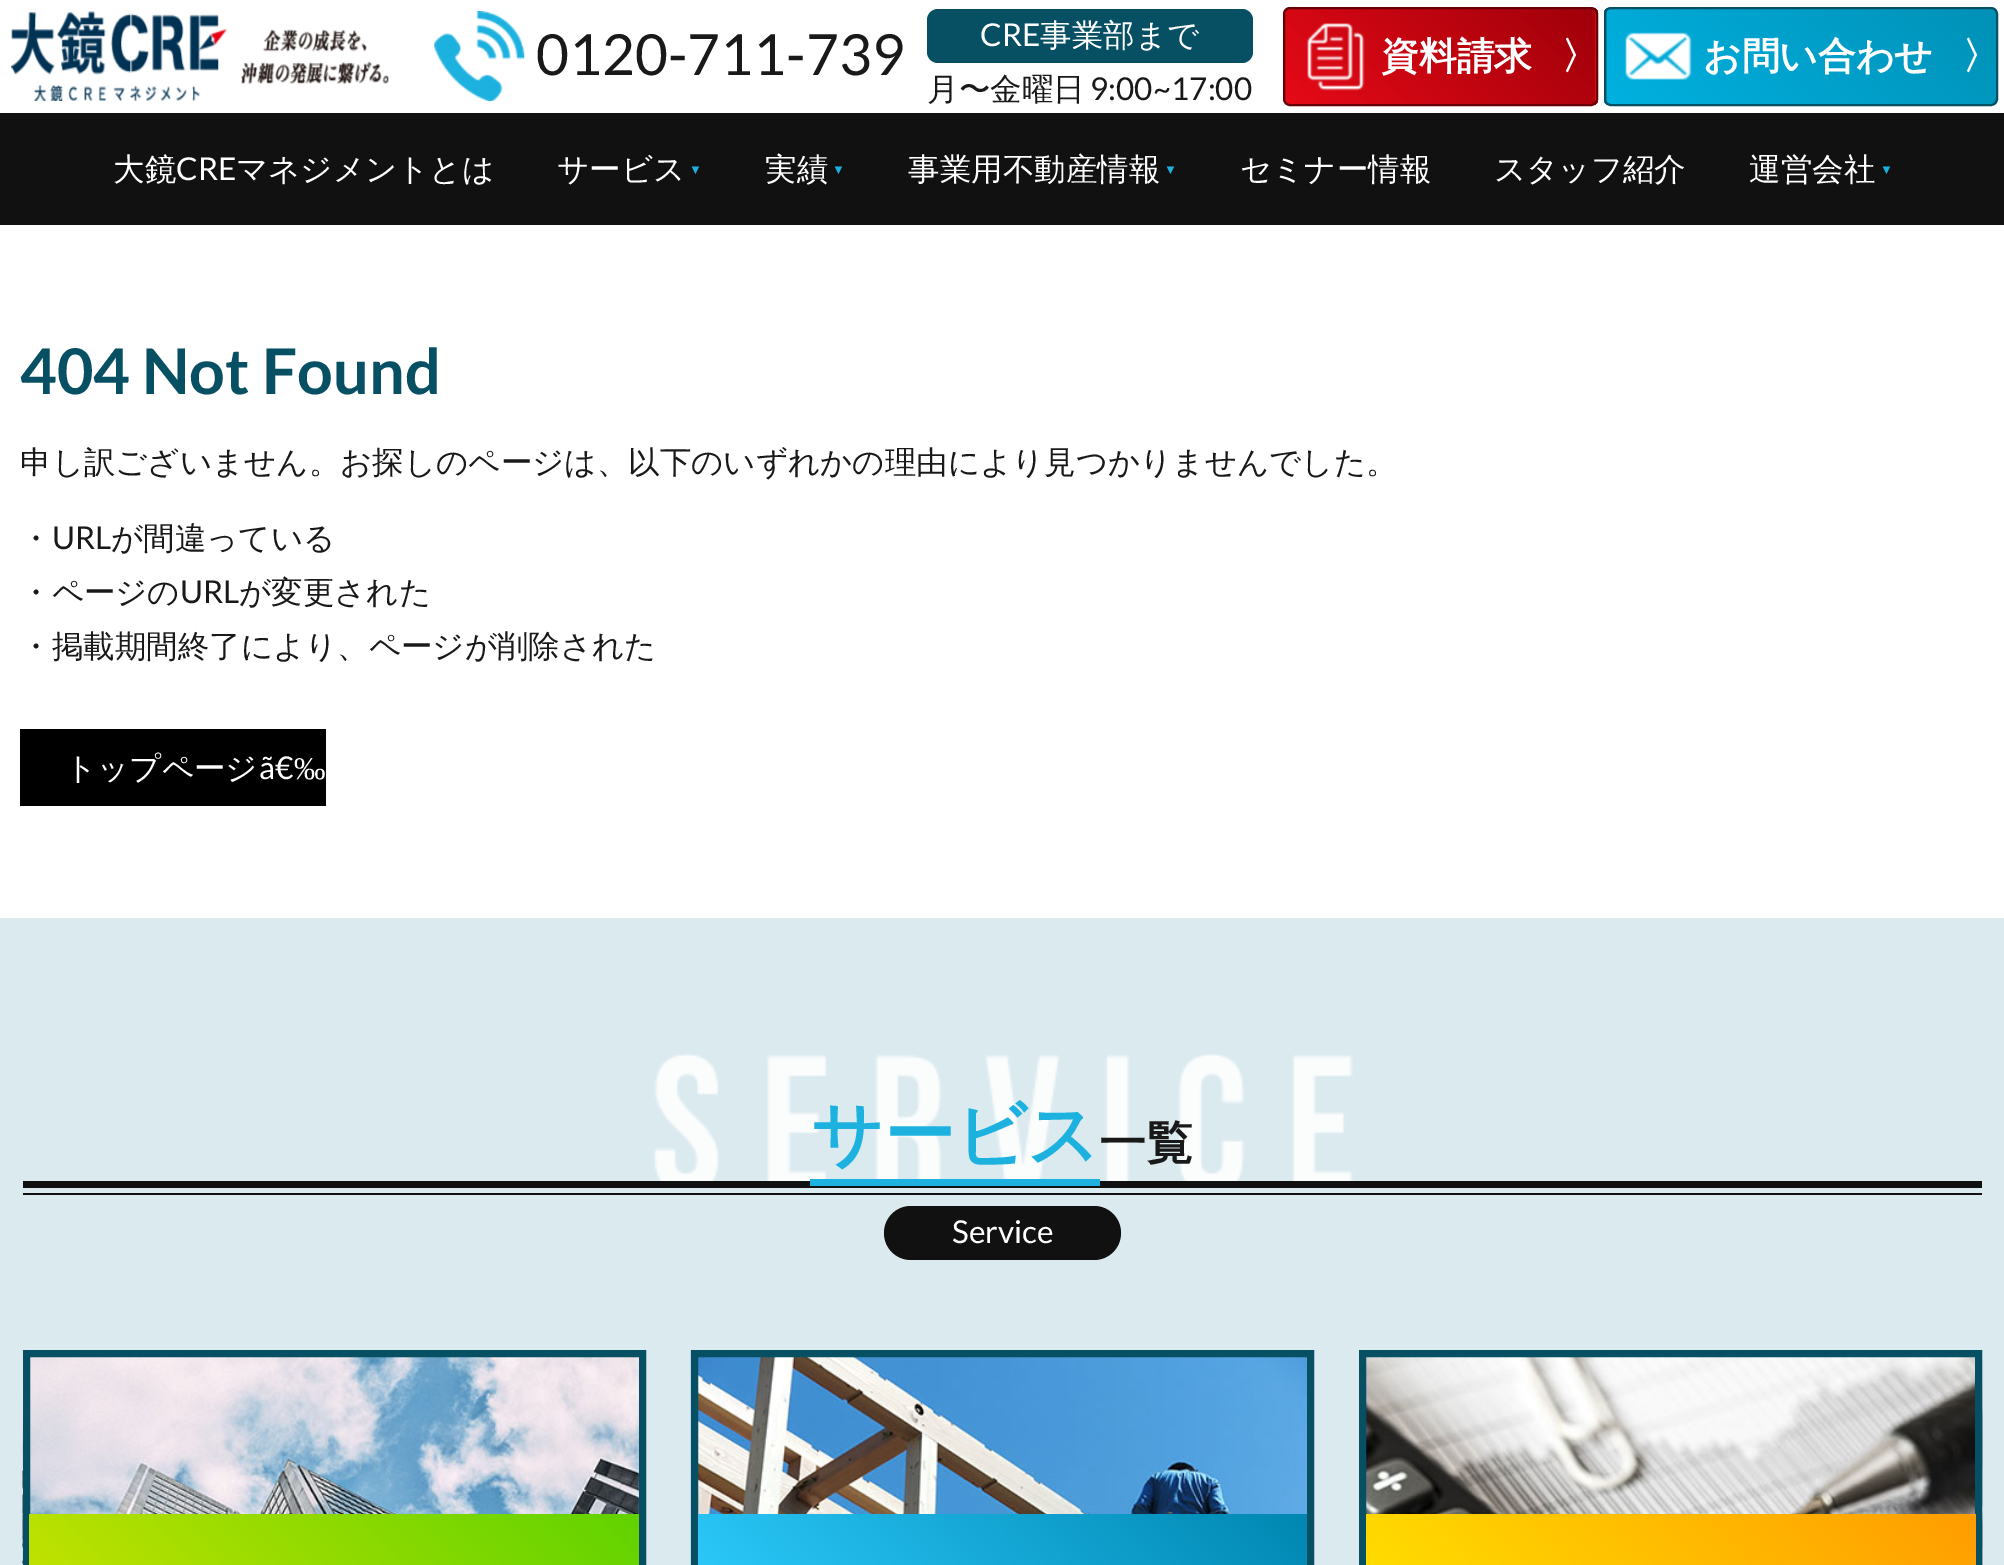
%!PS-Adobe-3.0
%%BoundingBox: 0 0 2004 1565
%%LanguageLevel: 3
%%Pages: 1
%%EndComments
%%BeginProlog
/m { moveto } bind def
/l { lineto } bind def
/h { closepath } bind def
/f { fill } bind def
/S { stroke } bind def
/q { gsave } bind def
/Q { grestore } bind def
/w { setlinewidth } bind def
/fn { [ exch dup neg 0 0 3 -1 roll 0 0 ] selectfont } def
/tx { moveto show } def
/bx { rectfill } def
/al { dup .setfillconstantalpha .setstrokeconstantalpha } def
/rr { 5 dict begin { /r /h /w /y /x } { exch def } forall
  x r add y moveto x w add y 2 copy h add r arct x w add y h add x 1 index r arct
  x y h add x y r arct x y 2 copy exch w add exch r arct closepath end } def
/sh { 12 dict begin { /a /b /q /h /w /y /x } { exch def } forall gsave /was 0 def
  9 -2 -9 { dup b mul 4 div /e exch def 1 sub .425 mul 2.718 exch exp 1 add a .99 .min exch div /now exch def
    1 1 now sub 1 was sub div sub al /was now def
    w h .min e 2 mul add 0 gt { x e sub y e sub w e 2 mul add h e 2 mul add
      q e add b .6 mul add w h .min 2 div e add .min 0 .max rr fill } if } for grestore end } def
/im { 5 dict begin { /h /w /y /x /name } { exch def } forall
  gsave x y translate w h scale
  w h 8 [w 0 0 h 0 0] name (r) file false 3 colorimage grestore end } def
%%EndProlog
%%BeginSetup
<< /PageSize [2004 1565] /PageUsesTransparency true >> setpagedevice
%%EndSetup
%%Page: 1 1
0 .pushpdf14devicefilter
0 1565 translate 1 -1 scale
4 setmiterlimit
1 setgray
0 0 2004 1565 bx
q
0 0 m 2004 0 l 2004 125 l 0 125 l h 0 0 m 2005 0 l 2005 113 l 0 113 l h eoclip newpath
0.867 setgray
0 0 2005 113 0 3.5 1 sh
Q
(image0.raw) 11 11 378 90 im
(image1.raw) 434 11 91 90 im
/Lato-Regular 56.75 fn
0.098 setgray
(0120-711-739) 536 75 tx
0.027 0.314 0.392 setrgbcolor
927 9 326 54 11 rr f
/Lato-Regular 31.5 fn
1 setgray
(CRE) 980 46 tx
/WenQuanYiZenHei-Medium 31.5 fn
(事業部まで) 1040 46 tx
0.098 setgray
(月〜金曜日) 927 100 tx
/Lato-Regular 31.5 fn
(9:00~17:00) 1090 100 tx
q
1283 7 315 99 7 rr clip newpath
q 1595 8 m 1598 8 l 1598 9 l 1595 9 l h clip newpath
<< /ShadingType 2 /ColorSpace /DeviceRGB /Coords [1649 63 1852 -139] /Extend [true true] /Function << /FunctionType 2 /Domain [0 1] /C0 [0.902 0.039 0.09] /C1 [0.624 0 0.039] /N 1 >> >> shfill Q
Q
q 1285 9 m 1595 9 l 1595 104 l 1285 104 l h clip newpath
<< /ShadingType 2 /ColorSpace /DeviceRGB /Coords [1339 158 1541 -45] /Extend [true true] /Function << /FunctionType 2 /Domain [0 1] /C0 [0.902 0.039 0.09] /C1 [0.624 0 0.039] /N 1 >> >> shfill Q
q
1283 7 315 99 7 rr clip newpath
q 1595 9 m 1598 9 l 1598 104 l 1595 104 l h clip newpath
<< /ShadingType 2 /ColorSpace /DeviceRGB /Coords [1649 158 1852 -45] /Extend [true true] /Function << /FunctionType 2 /Domain [0 1] /C0 [0.902 0.039 0.09] /C1 [0.624 0 0.039] /N 1 >> >> shfill Q
q 1595 104 m 1598 104 l 1598 105 l 1595 105 l h clip newpath
<< /ShadingType 2 /ColorSpace /DeviceRGB /Coords [1649 252 1852 50] /Extend [true true] /Function << /FunctionType 2 /Domain [0 1] /C0 [0.902 0.039 0.09] /C1 [0.624 0 0.039] /N 1 >> >> shfill Q
Q
0.404 0 0.024 setrgbcolor
2 w
1284 8 313 97 6 rr S
/WenQuanYiZenHei-Bold 37.75 fn
1 setgray
(資料請求) 1381 69 tx
(image2.raw) 1307 23 58 68 im
(〉) 1561 69 tx
q
1604 7 394 99 7 rr clip newpath
q 1604 8 m 1607 8 l 1607 9 l 1604 9 l h clip newpath
<< /ShadingType 2 /ColorSpace /DeviceRGB /Coords [1291 83 1533 -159] /Extend [true true] /Function << /FunctionType 2 /Domain [0 1] /C0 [0 0.694 0.878] /C1 [0 0.569 0.718] /N 1 >> >> shfill Q
q 1604 9 m 1607 9 l 1607 104 l 1604 104 l h clip newpath
<< /ShadingType 2 /ColorSpace /DeviceRGB /Coords [1291 177 1533 -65] /Extend [true true] /Function << /FunctionType 2 /Domain [0 1] /C0 [0 0.694 0.878] /C1 [0 0.569 0.718] /N 1 >> >> shfill Q
Q
q 1607 9 m 1996 9 l 1996 104 l 1607 104 l h clip newpath
<< /ShadingType 2 /ColorSpace /DeviceRGB /Coords [1680 177 1922 -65] /Extend [true true] /Function << /FunctionType 2 /Domain [0 1] /C0 [0 0.694 0.878] /C1 [0 0.569 0.718] /N 1 >> >> shfill Q
q
1604 7 394 99 7 rr clip newpath
q 1604 104 m 1607 104 l 1607 105 l 1604 105 l h clip newpath
<< /ShadingType 2 /ColorSpace /DeviceRGB /Coords [1291 272 1533 30] /Extend [true true] /Function << /FunctionType 2 /Domain [0 1] /C0 [0 0.694 0.878] /C1 [0 0.569 0.718] /N 1 >> >> shfill Q
Q
0.027 0.314 0.392 setrgbcolor
1605 8 392 97 6 rr S
1 setgray
(お問い合わせ) 1703 69 tx
(image3.raw) 1625 32 67 48 im
(〉) 1962 69 tx
0.067 setgray
0 113 2004 112 bx
/WenQuanYiZenHei-Medium 31.5 fn
1 setgray
(大鏡) 113 180 tx
/Lato-Regular 31.5 fn
(CRE) 176 180 tx
/WenQuanYiZenHei-Medium 31.5 fn
(マネジメントとは) 236 180 tx
(サービス) 557 180 tx
/LiberationSerif-Regular 13 fn
0.114 0.694 0.875 setrgbcolor
(▼) 689 174 tx
/WenQuanYiZenHei-Medium 31.5 fn
1 setgray
(実績) 765 180 tx
/LiberationSerif-Regular 13 fn
0.114 0.694 0.875 setrgbcolor
(▼) 832 174 tx
/WenQuanYiZenHei-Medium 31.5 fn
1 setgray
(事業用不動産情報) 908 180 tx
/LiberationSerif-Regular 13 fn
0.114 0.694 0.875 setrgbcolor
(▼) 1164 174 tx
/WenQuanYiZenHei-Medium 31.5 fn
1 setgray
(セミナー情報) 1240 180 tx
(スタッフ紹介) 1494 180 tx
(運営会社) 1749 180 tx
/LiberationSerif-Regular 13 fn
0.114 0.694 0.875 setrgbcolor
(▼) 1880 174 tx
/Lato-Bold 63 fn
0.027 0.314 0.392 setrgbcolor
(404 Not Found) 20 394 tx
/WenQuanYiZenHei-Medium 31.5 fn
0.098 setgray
(申し訳ございません。お探しのページは、以下のいずれかの理由により見つかりませんでした。) 20 473 tx
(・) 20 549 tx
/Lato-Regular 31.5 fn
(URL) 52 549 tx
/WenQuanYiZenHei-Medium 31.5 fn
(が間違っている) 111 549 tx
(・ページの) 20 603 tx
/Lato-Regular 31.5 fn
(URL) 180 603 tx
/WenQuanYiZenHei-Medium 31.5 fn
(が変更された) 239 603 tx
(・掲載期間終了により、ページが削除された) 20 657 tx
0 setgray
20 729 306 77 bx
1 setgray
(トップページ) 65 779 tx
/Lato-Regular 31.5 fn
(ã€) 259 779 tx
/LiberationSerif-Regular 31.5 fn
(‰) 294 779 tx
0.859 0.918 0.937 setrgbcolor
0 918 2004 647 bx
(image4.raw) 654 1053 699 128 im
0.067 setgray
23 1181 1959 7 bx
/WenQuanYiZenHei-Bold 71 fn
0.114 0.694 0.875 setrgbcolor
(サービス) 811 1159 tx
810 1179 290 7 bx
/WenQuanYiZenHei-Bold 47 fn
0.098 setgray
(一覧) 1099 1159 tx
0.067 setgray
23 1193 1959 2 bx
884 1206 237 54 27 rr f
/Lato-Regular 31.5 fn
1 setgray
(Service) 952 1243 tx
(image5.raw) 22 1350 617 215 im
0.027 0.314 0.392 setrgbcolor
7 w
26.5 1353.5 616 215 rectstroke
q 29 1514 m 639 1514 l 639 1565 l 29 1565 l h clip newpath
<< /ShadingType 2 /ColorSpace /DeviceRGB /Coords [153 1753 515 1391] /Extend [true true] /Function << /FunctionType 2 /Domain [0 1] /C0 [0.788 0.89 0] /C1 [0.38 0.827 0] /N 1 >> >> shfill Q
(image6.raw) 690 1350 617 215 im
694.5 1353.5 616 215 rectstroke
q 698 1514 m 1307 1514 l 1307 1565 l 698 1565 l h clip newpath
<< /ShadingType 2 /ColorSpace /DeviceRGB /Coords [821 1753 1184 1391] /Extend [true true] /Function << /FunctionType 2 /Domain [0 1] /C0 [0.184 0.808 1] /C1 [0 0.529 0.694] /N 1 >> >> shfill Q
(image7.raw) 1366 1350 617 215 im
1362.5 1353.5 616 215 rectstroke
q 1366 1514 m 1976 1514 l 1976 1565 l 1366 1565 l h clip newpath
<< /ShadingType 2 /ColorSpace /DeviceRGB /Coords [1490 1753 1852 1391] /Extend [true true] /Function << /FunctionType 2 /Domain [0 1] /C0 [1 0.886 0] /C1 [1 0.616 0] /N 1 >> >> shfill Q
.poppdf14devicefilter showpage
%%EOF
